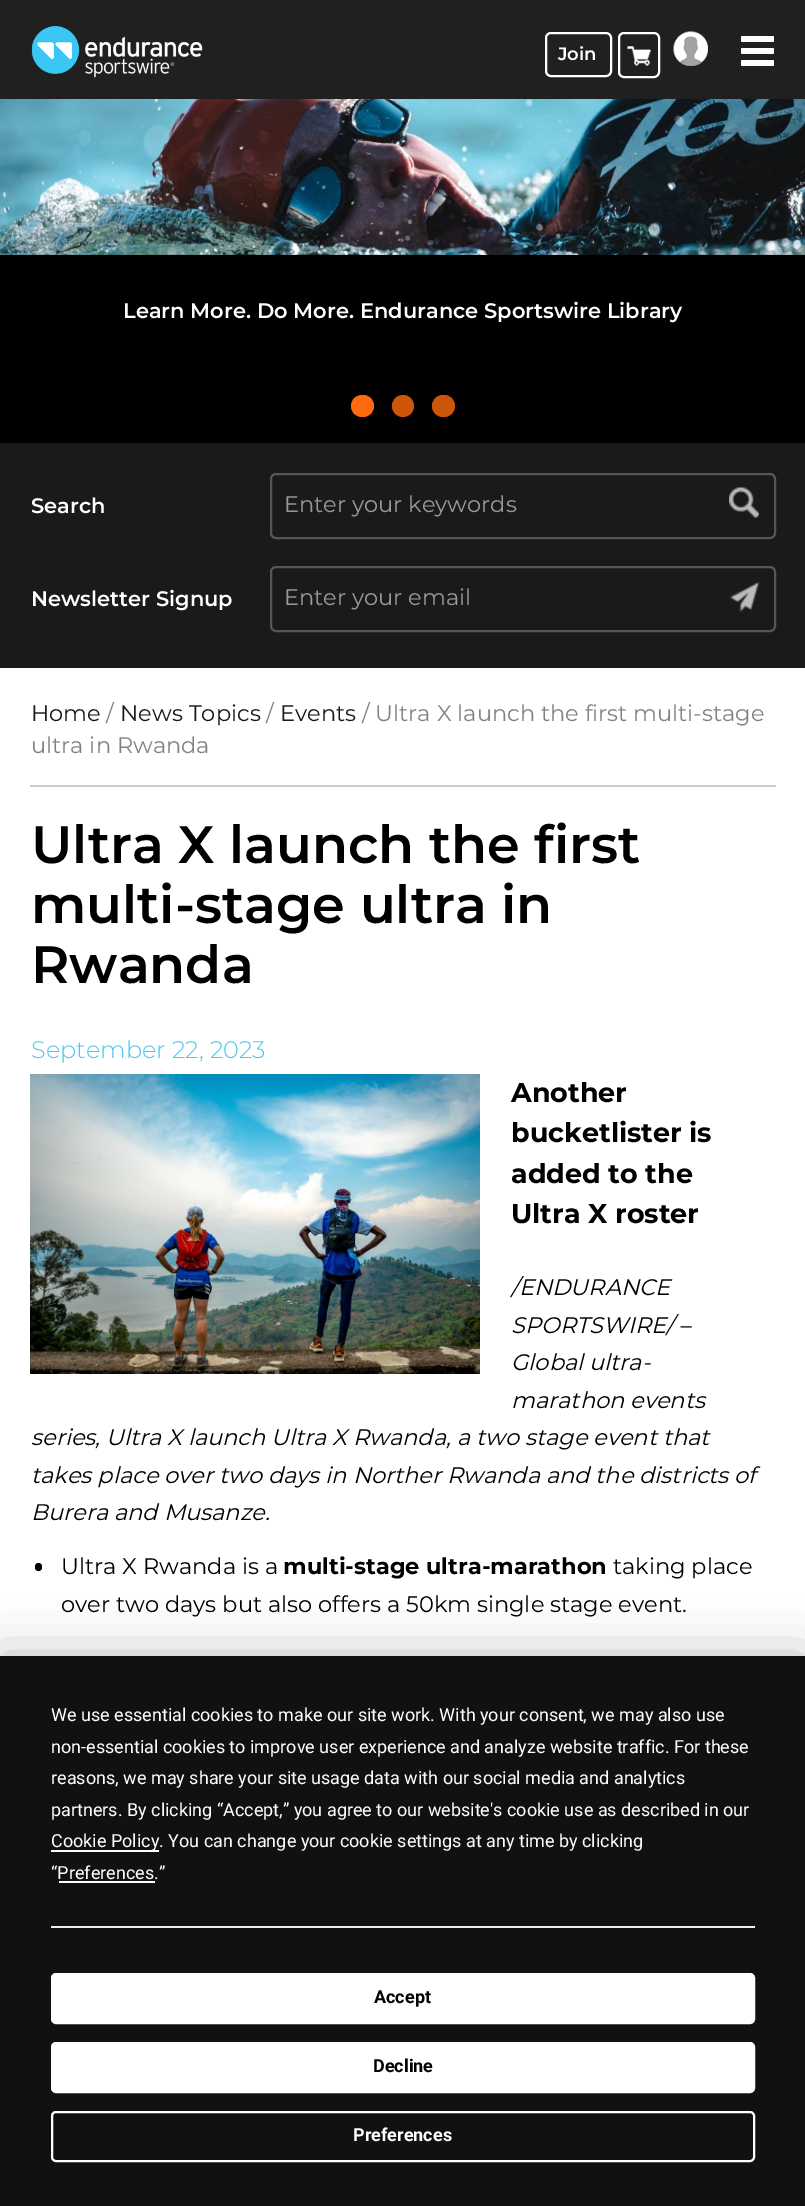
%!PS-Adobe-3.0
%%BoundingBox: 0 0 805 2206
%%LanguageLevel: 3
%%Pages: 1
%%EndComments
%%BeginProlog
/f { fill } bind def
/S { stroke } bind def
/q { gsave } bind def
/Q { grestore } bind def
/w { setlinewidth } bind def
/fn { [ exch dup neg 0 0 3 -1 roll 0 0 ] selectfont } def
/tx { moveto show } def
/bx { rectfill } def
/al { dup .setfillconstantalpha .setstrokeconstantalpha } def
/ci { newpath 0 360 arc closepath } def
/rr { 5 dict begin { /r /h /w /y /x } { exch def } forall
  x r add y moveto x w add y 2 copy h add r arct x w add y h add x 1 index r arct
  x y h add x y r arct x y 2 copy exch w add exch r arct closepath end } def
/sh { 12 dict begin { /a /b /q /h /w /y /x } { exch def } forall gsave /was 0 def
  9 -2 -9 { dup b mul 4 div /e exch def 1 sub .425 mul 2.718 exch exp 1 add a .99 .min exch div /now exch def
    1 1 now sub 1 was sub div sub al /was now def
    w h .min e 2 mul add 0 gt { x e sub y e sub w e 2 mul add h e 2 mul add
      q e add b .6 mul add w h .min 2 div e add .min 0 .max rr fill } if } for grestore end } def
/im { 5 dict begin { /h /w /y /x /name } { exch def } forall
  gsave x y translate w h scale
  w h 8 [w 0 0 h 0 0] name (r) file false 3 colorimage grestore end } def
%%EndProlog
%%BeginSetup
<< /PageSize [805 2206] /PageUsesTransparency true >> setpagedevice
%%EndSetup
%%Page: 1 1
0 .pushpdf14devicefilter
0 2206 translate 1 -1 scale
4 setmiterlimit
1 setgray
0 0 805 2206 bx
0.125 setgray
0 0 805 99 bx
(image0.raw) 31 26 172 52 im
1 setgray
2 w
546 33 65 43 5 rr S
/Montserrat-SemiBold 18 fn
(Join) 558 60 tx
619 33 40 44 5 rr S
(image1.raw) 627 46 24 20 im
(image2.raw) 673 31 35 35 im
741 36 33 6 1.5 rr f
741 48 33 6 1.5 rr f
741 60 33 6 1.5 rr f
0 setgray
0 254 805 189 bx
(image3.raw) 0 99 805 156 im
/Montserrat-SemiBold 21 fn
1 setgray
(Learn More. Do More. Endurance Sportswire Library) 123 318 tx
1 0.416 0.047 setrgbcolor
351 395 23 22 11 rr f
0.8 0.333 0.039 setrgbcolor
403 406 11 ci f
432 395 23 22 11 rr f
0.102 setgray
0 443 805 225 bx
1 setgray
(Search) 31 513 tx
0.337 setgray
271 474 504 64 5 rr S
/Montserrat-Regular 22.5 fn
0.6 setgray
(Enter your keywords) 284 512 tx
(image4.raw) 729 487 30 31 im
/Montserrat-SemiBold 21 fn
1 setgray
(Newsletter Signup) 31 606 tx
0.337 setgray
271 567 504 64 5 rr S
/Montserrat-Regular 22.5 fn
0.6 setgray
(Enter your email) 284 605 tx
(image5.raw) 730 582 29 30 im
0.8 setgray
30 785 746 2 bx
0.102 setgray
(Home) 31 721 tx
0.51 setgray
(/) 106 721 tx
0.102 setgray
(News Topics) 120 721 tx
0.51 setgray
(/) 266 721 tx
0.102 setgray
(Events) 280 721 tx
0.51 setgray
(/ Ultra X launch the first multi-stage) 362 721 tx
(ultra in Rwanda) 31 753 tx
/Montserrat-SemiBold 52.5 fn
0 setgray
(Ultra X launch the first) 31 863 tx
(multi-stage ultra in) 31 923 tx
(Rwanda) 31 983 tx
/Montserrat-Light 24 fn
0.302 0.78 0.933 setrgbcolor
(September 22, 2023) 31 1058 tx
(image6.raw) 30 1074 450 300 im
/Montserrat-Bold 27 fn
0 setgray
(Another) 511 1102 tx
(bucketlister is) 511 1142 tx
(added to the) 511 1183 tx
(Ultra X roster) 511 1223 tx
/Montserrat-Italic 22.5 fn
(/ENDURANCE) 511 1295 tx
(SPORTSWIRE/ –) 511 1333 tx
(Global ultra-) 511 1370 tx
(marathon events) 511 1408 tx
(series, Ultra X launch Ultra X Rwanda, a two stage event that) 31 1445 tx
(takes place over two days in Norther Rwanda and the districts of) 31 1483 tx
(Burera and Musanze.) 31 1520 tx
35 1563 7 8 3.5 rr f
/Montserrat-Regular 22.5 fn
(Ultra X Rwanda is a) 61 1574 tx
/Montserrat-Bold 22.5 fn
(multi-stage ultra-marathon) 283 1574 tx
/Montserrat-Regular 22.5 fn
(taking place) 613 1574 tx
(over two days but also offers a 50km single stage event.) 61 1612 tx
0 1656 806 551 0 26 0.25 sh
0.063 0.071 0.071 setrgbcolor
0 1656 805 550 bx
/Roboto-Regular 18 fn
1 setgray
(We use essential cookies to make our site work. With your consent, we may also use) 51 1721 tx
(non-essential cookies to improve user experience and analyze website traffic. For these) 51 1753 tx
(reasons, we may share your site usage data with our social media and analytics) 51 1784 tx
(partners. By clicking “Accept,” you agree to our website's cookie use as described in our) 51 1816 tx
51 1850 108 2 bx
(Cookie Policy. You can change your cookie settings at any time by clicking) 51 1847 tx
(“Preferences.”) 51 1879 tx
59 1881 96 2 bx
0.929 0.929 0.937 setrgbcolor
51 1926 704 2 bx
1 setgray
52 1974 702 49 4 rr q f Q
S
/Roboto-Bold 18 fn
0 setgray
(Accept) 374 2003 tx
1 setgray
52 2043 702 49 4 rr q f Q
S
0 setgray
(Decline) 373 2072 tx
1 setgray
52 2112 702 49 4 rr S
(Preferences) 353 2141 tx
.poppdf14devicefilter showpage
%%EOF
